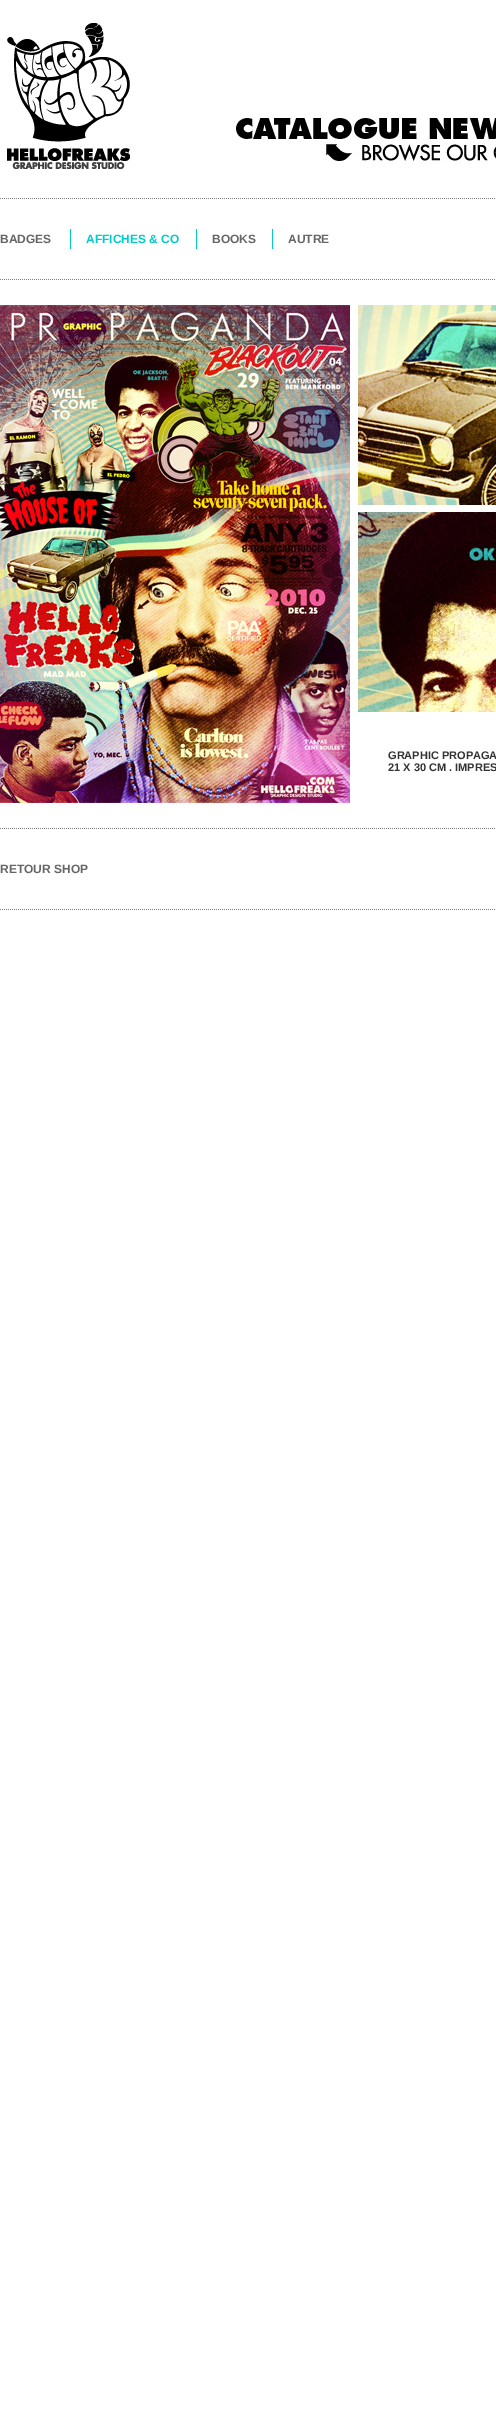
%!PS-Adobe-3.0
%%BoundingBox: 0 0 496 2434
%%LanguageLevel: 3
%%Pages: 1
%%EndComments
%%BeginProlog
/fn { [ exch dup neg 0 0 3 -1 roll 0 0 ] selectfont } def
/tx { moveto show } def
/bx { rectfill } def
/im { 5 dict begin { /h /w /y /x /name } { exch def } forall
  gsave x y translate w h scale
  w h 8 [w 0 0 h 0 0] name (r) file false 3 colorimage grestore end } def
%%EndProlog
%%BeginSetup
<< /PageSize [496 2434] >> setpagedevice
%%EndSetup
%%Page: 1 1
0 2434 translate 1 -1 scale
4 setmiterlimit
1 setgray
0 0 496 2434 bx
(image0.raw) 7 23 123 146 im
(image1.raw) 236 118 181 21 im
(image2.raw) 429 118 67 21 im
(image3.raw) 324 142 172 19 im
(image4.raw) 0 198 495 1 im
/LiberationSans-Bold 12 fn
0.4 setgray
(BADGES) 0 243 tx
0 0.8 0.8 setrgbcolor
70 229 1 20 bx
(AFFICHES & CO) 86 243 tx
196 229 1 20 bx
0.4 setgray
(BOOKS) 212 243 tx
0 0.8 0.8 setrgbcolor
272 229 1 20 bx
0.4 setgray
(AUTRE) 288 243 tx
(image4.raw) 0 279 495 1 im
(image5.raw) 0 305 350 498 im
(image6.raw) 358 305 138 200 im
(image7.raw) 358 512 138 200 im
/LiberationSans-Bold 11 fn
0.2 setgray
(GRAPHIC PROPAGA) 388 759 tx
(21 X 30 CM . IMPRES) 388 771 tx
(image4.raw) 0 828 495 1 im
/LiberationSans-Bold 12 fn
0.4 setgray
(RETOUR SHOP) 0 873 tx
(image4.raw) 0 909 495 1 im
showpage
%%EOF
